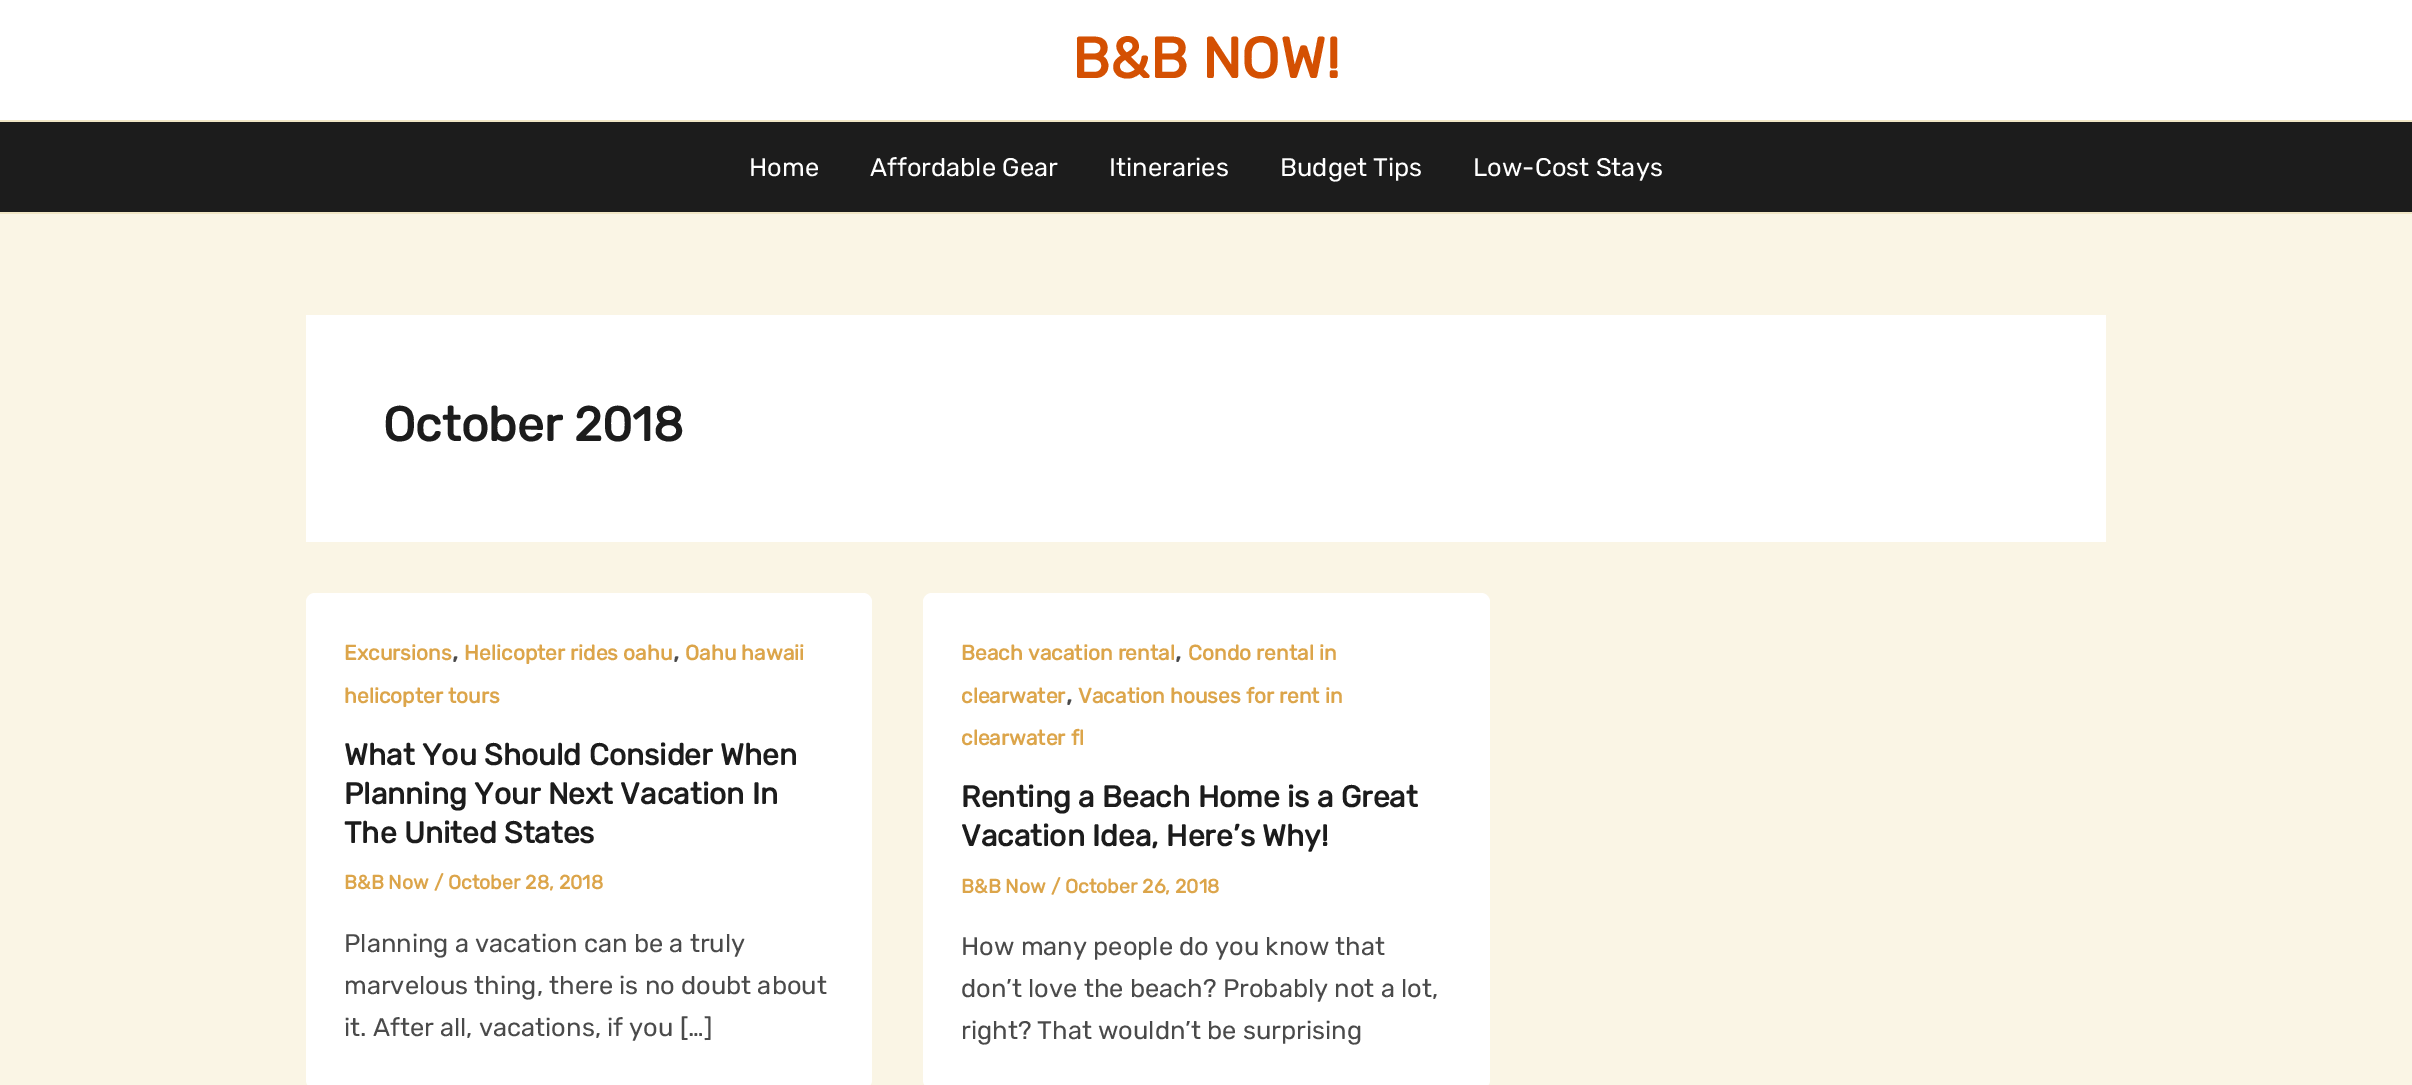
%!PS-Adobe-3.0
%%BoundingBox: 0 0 2412 1085
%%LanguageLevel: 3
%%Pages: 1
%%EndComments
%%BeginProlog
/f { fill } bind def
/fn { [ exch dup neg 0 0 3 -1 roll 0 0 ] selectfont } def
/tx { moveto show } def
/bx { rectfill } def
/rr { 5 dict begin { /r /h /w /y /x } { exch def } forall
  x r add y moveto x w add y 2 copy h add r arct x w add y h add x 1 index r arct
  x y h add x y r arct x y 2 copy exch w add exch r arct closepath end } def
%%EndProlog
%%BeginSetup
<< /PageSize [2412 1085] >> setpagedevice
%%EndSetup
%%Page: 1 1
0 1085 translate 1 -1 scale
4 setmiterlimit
0.98 0.961 0.898 setrgbcolor
0 0 2412 1085 bx
1 setgray
0 0 2412 120 bx
0.941 0.902 0.773 setrgbcolor
0 120 2412 2 bx
/Rubik-Bold 57 fn
0.831 0.314 0.008 setrgbcolor
(B&B NOW!) 1072 78 tx
0.11 setgray
0 122 2412 90 bx
0.941 0.902 0.773 setrgbcolor
0 212 2412 2 bx
/Rubik-Light 25.5 fn
1 setgray
(Home) 749 176 tx
(Affordable Gear) 870 176 tx
(Itineraries) 1109 176 tx
(Budget Tips) 1280 176 tx
(Low-Cost Stays) 1473 176 tx
306 315 1800 227 bx
/Rubik-Bold 48 fn
0.11 setgray
(October 2018) 383 441 tx
1 setgray
306 593 566 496 9 rr f
/Rubik-Bold 21 fn
0.863 0.647 0.29 setrgbcolor
(Excursions) 344 660 tx
/Rubik-Bold 25.5 fn
0.29 setgray
(,) 452 660 tx
/Rubik-Bold 21 fn
0.863 0.647 0.29 setrgbcolor
(Helicopter rides oahu) 464 660 tx
/Rubik-Bold 25.5 fn
0.29 setgray
(,) 673 660 tx
/Rubik-Bold 21 fn
0.863 0.647 0.29 setrgbcolor
(Oahu hawaii) 685 660 tx
(helicopter tours) 344 703 tx
/Rubik-Bold 30 fn
0.11 setgray
(What You Should Consider When) 344 765 tx
(Planning Your Next Vacation In) 344 804 tx
(The United States) 344 843 tx
/Rubik-Bold 19.5 fn
0.863 0.647 0.29 setrgbcolor
(B&B Now / October 28, 2018) 344 889 tx
/Rubik-Light 25.5 fn
0.29 setgray
(Planning a vacation can be a truly) 344 952 tx
(marvelous thing, there is no doubt about) 344 994 tx
(it. After all, vacations, if you […]) 344 1036 tx
1 setgray
923 593 567 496 9 rr f
/Rubik-Bold 21 fn
0.863 0.647 0.29 setrgbcolor
(Beach vacation rental) 961 660 tx
/Rubik-Bold 25.5 fn
0.29 setgray
(,) 1175 660 tx
/Rubik-Bold 21 fn
0.863 0.647 0.29 setrgbcolor
(Condo rental in) 1188 660 tx
(clearwater) 961 703 tx
/Rubik-Bold 25.5 fn
0.29 setgray
(,) 1066 703 tx
/Rubik-Bold 21 fn
0.863 0.647 0.29 setrgbcolor
(Vacation houses for rent in) 1078 703 tx
(clearwater fl) 961 745 tx
/Rubik-Bold 30 fn
0.11 setgray
(Renting a Beach Home is a Great) 961 807 tx
(Vacation Idea, Here’s Why!) 961 846 tx
/Rubik-Bold 19.5 fn
0.863 0.647 0.29 setrgbcolor
(B&B Now / October 26, 2018) 961 893 tx
/Rubik-Light 25.5 fn
0.29 setgray
(How many people do you know that) 961 955 tx
(don’t love the beach? Probably not a lot,) 961 997 tx
(right? That wouldn’t be surprising) 961 1039 tx
showpage
%%EOF
